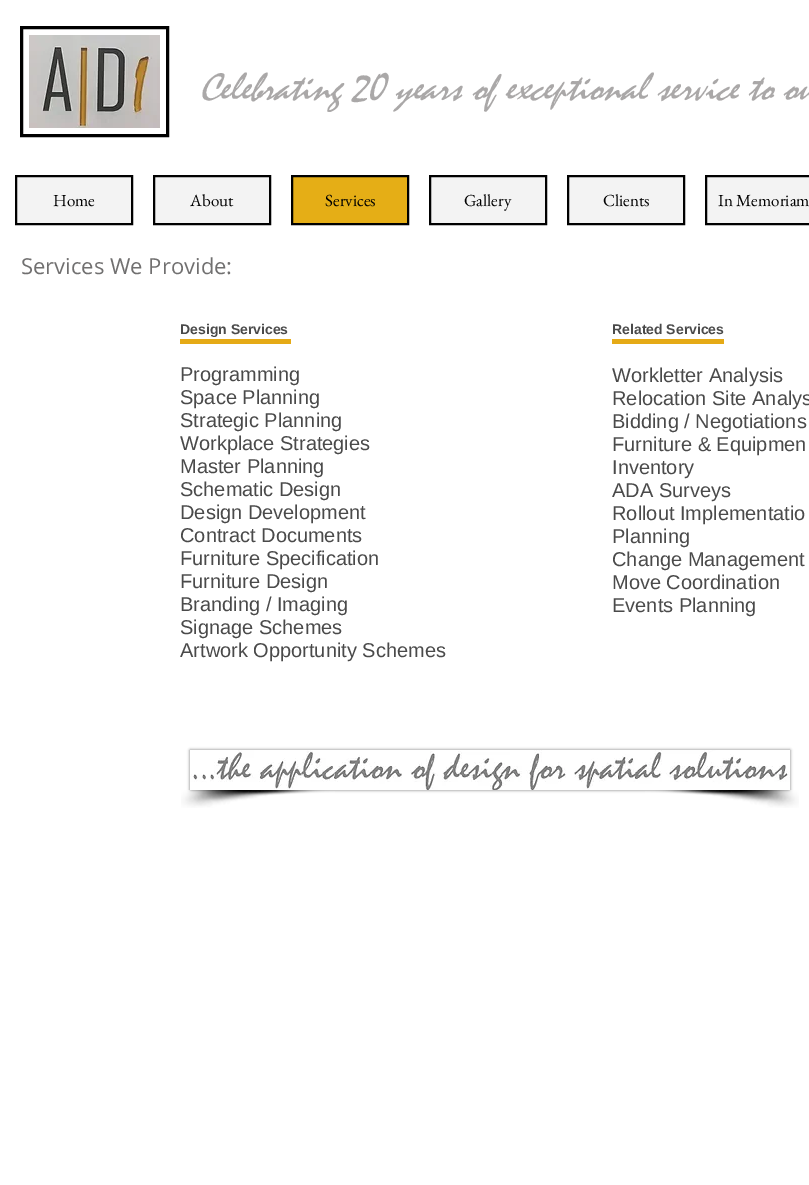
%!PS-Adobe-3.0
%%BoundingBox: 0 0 809 1185
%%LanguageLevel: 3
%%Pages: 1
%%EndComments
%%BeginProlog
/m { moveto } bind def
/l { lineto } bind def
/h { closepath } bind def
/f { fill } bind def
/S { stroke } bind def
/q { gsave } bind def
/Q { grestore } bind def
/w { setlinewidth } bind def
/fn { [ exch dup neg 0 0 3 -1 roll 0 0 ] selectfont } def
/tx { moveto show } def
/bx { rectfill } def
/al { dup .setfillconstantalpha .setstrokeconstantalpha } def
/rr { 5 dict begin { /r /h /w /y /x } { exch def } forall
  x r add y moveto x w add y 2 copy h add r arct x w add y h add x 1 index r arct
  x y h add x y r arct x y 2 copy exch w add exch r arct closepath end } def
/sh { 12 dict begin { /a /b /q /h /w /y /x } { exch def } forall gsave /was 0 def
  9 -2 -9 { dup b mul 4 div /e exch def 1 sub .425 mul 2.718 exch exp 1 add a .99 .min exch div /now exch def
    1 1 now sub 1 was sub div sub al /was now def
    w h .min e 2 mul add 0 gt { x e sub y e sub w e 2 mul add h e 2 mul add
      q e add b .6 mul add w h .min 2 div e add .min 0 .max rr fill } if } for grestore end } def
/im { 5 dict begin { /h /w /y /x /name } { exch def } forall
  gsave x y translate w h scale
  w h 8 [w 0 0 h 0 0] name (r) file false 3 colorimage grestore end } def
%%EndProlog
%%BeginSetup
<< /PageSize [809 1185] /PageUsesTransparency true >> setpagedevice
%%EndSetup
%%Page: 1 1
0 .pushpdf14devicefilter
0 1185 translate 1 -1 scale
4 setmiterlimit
1 setgray
0 0 809 1185 bx
0 setgray
3 w
21.5 27.5 146 108 rectstroke
(image0.raw) 29 35 131 93 im
/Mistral-Italic 40 fn
0.667 0.659 0.659 setrgbcolor
(Celebrating 20 years of exceptional service to ou) 200 100 tx
0.953 setgray
16 176 m 132 176 l 132 224 l 16 224 l h q f Q
0 setgray
2 w
S
/EBGaramond-Regular 17 fn
(Home) 53 206 tx
0.953 setgray
154 176 m 270 176 l 270 224 l 154 224 l h q f Q
0 setgray
S
(About) 190 206 tx
0.898 0.682 0.086 setrgbcolor
292 176 m 408 176 l 408 224 l 292 224 l h q f Q
0 setgray
S
(Services) 325 206 tx
0.953 setgray
430 176 m 546 176 l 546 224 l 430 224 l h q f Q
0 setgray
S
(Gallery) 464 206 tx
0.953 setgray
568 176 m 684 176 l 684 224 l 568 224 l h q f Q
0 setgray
S
(Clients) 603 206 tx
0.953 setgray
706 176 m 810 176 l 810 224 l 706 224 l h q f Q
0 setgray
S
(In Memoriam) 718 206 tx
/OpenSans-Regular 22 fn
0.443 0.439 0.439 setrgbcolor
(Services We Provide:) 21 274 tx
/LiberationSans-Bold 14 fn
0.29 setgray
(Design Services) 180 334 tx
(Related Services) 612 334 tx
0.898 0.667 0.086 setrgbcolor
180 339 111 5 bx
612 339 112 5 bx
/LiberationSans-Regular 20 fn
0.29 setgray
(Programming) 180 381 tx
(Space Planning) 180 404 tx
(Strategic Planning) 180 427 tx
(Workplace Strategies) 180 450 tx
(Master Planning) 180 473 tx
(Schematic Design) 180 496 tx
(Design Development) 180 519 tx
(Contract Documents) 180 542 tx
(Furniture Specification) 180 565 tx
(Furniture Design) 180 588 tx
(Branding / Imaging) 180 611 tx
(Signage Schemes) 180 634 tx
(Artwork Opportunity Schemes) 180 657 tx
(Workletter Analysis) 612 382 tx
(Relocation Site Analys) 612 405 tx
(Bidding / Negotiations) 612 428 tx
(Furniture & Equipmen) 612 451 tx
(Inventory) 612 474 tx
(ADA Surveys) 612 497 tx
(Rollout Implementatio) 612 520 tx
(Planning) 612 543 tx
(Change Management) 612 566 tx
(Move Coordination) 612 589 tx
(Events Planning) 612 612 tx
0 setgray
190 750 600 40 0 1.5 0.5 sh
(image1.raw) 190 750 600 40 im
(image2.raw) 181 790 154 18 im
(image3.raw) 645 790 154 18 im
.poppdf14devicefilter showpage
%%EOF
